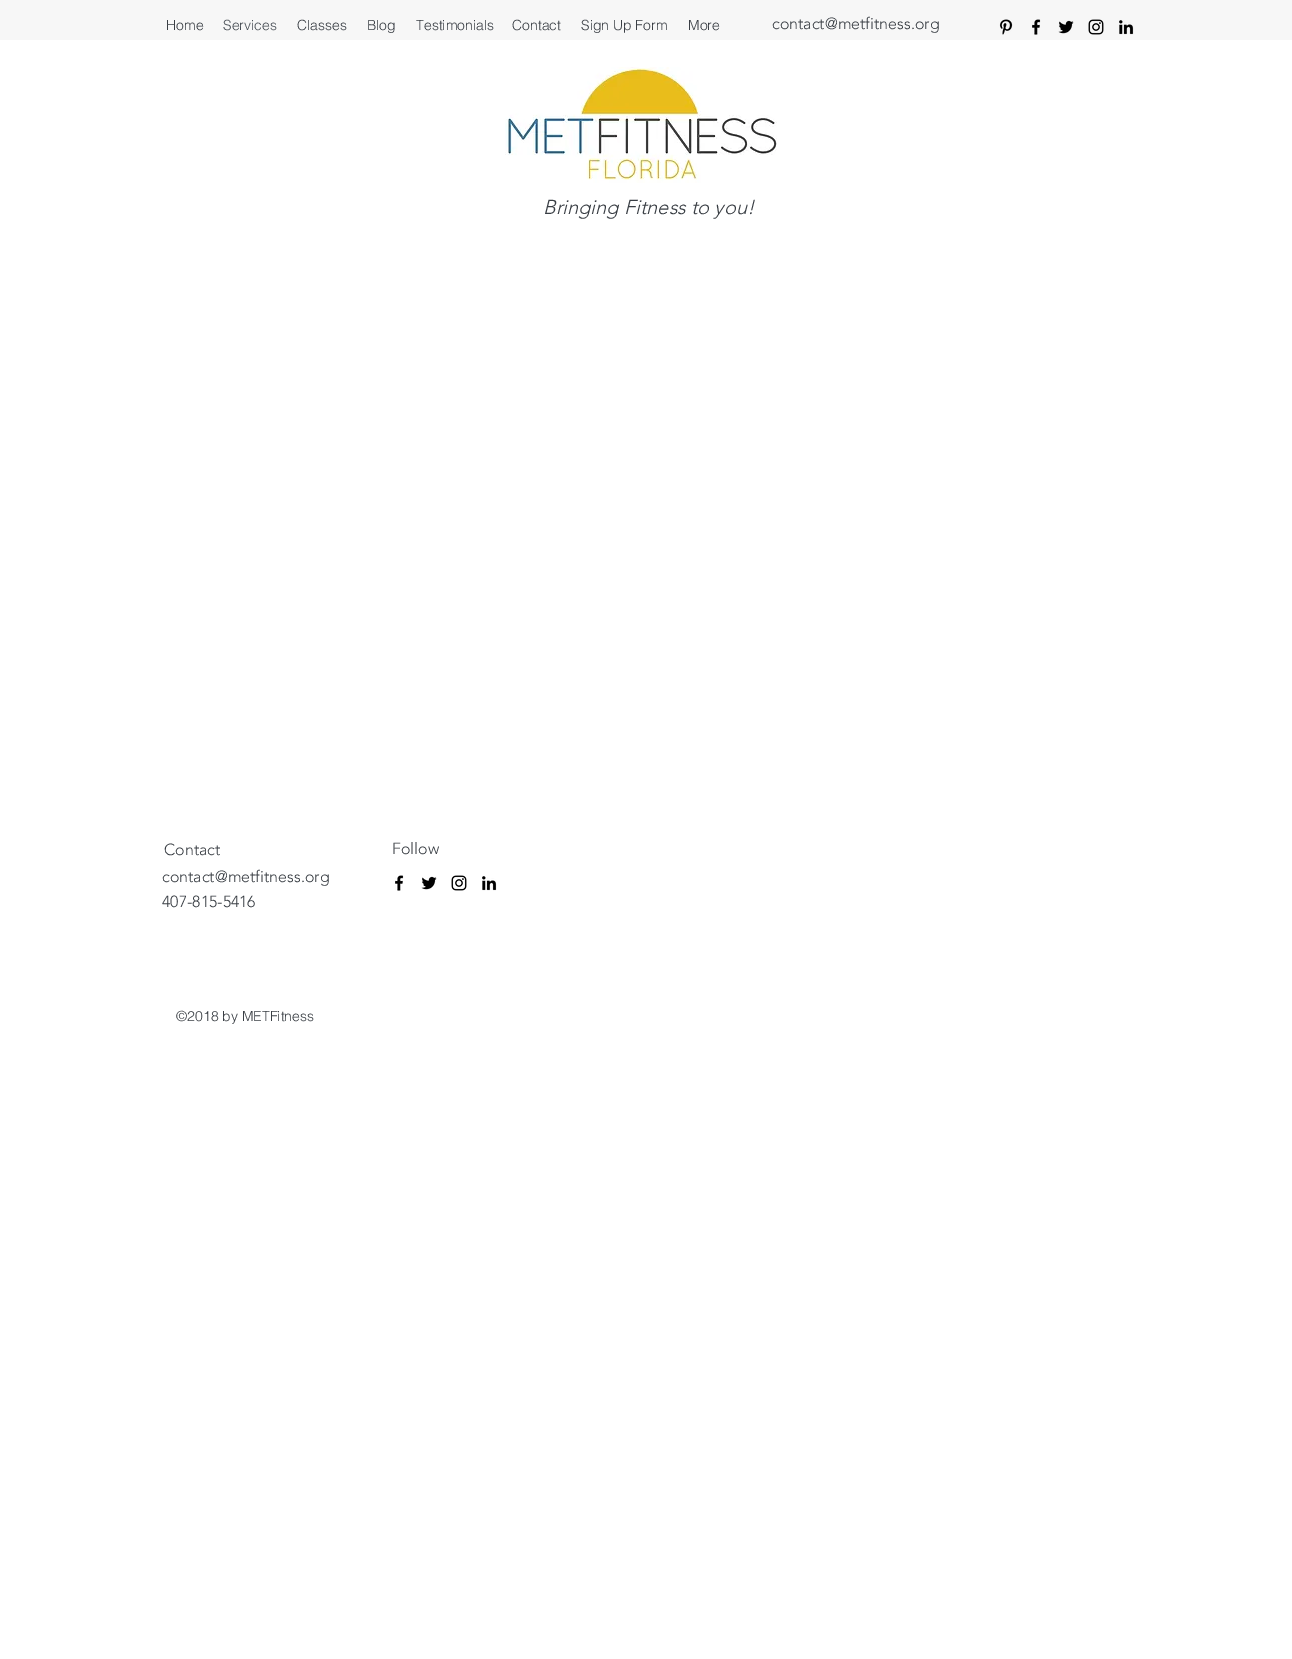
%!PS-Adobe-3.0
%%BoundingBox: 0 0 1292 1659
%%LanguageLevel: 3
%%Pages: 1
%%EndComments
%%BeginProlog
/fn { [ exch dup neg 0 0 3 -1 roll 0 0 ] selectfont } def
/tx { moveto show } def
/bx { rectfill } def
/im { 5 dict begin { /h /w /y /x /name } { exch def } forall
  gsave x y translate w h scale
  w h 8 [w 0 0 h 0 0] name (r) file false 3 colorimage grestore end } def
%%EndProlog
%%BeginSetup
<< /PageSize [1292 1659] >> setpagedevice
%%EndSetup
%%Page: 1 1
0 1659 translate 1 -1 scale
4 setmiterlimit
1 setgray
0 0 1292 1659 bx
0.969 setgray
0 0 1292 40 bx
/helvetica-Light 14 fn
0.224 0.243 0.267 setrgbcolor
(Home) 166 30 tx
0.282 0.306 0.333 setrgbcolor
(Services) 223 30 tx
0.224 0.243 0.267 setrgbcolor
(Classes) 297 30 tx
(Blog) 367 30 tx
(Testimonials) 416 30 tx
(Contact) 512 30 tx
(Sign Up Form) 581 30 tx
(More) 688 30 tx
/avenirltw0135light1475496-Light 16 fn
(contact@metfitness.org) 772 29 tx
(image0.raw) 999 19 14 16 im
(image1.raw) 1032 19 9 16 im
(image2.raw) 1058 20 16 14 im
(image3.raw) 1088 19 16 16 im
(image4.raw) 1119 20 15 15 im
(image5.raw) 505 67 272 116 im
/avenirltw0135light1475496-LightItalic 20 fn
(Bringing Fitness to you!) 543 214 tx
/avenirltw0135light1475496-Light 16 fn
(Contact) 164 855 tx
(Follow) 392 854 tx
(contact@metfitness.org) 162 882 tx
(407-815-5416) 162 907 tx
(image6.raw) 395 875 9 16 im
(image7.raw) 421 876 16 14 im
(image8.raw) 451 875 16 16 im
(image9.raw) 482 876 15 15 im
/helvetica-Light 14 fn
(©2018 by METFitness) 176 1021 tx
showpage
%%EOF
